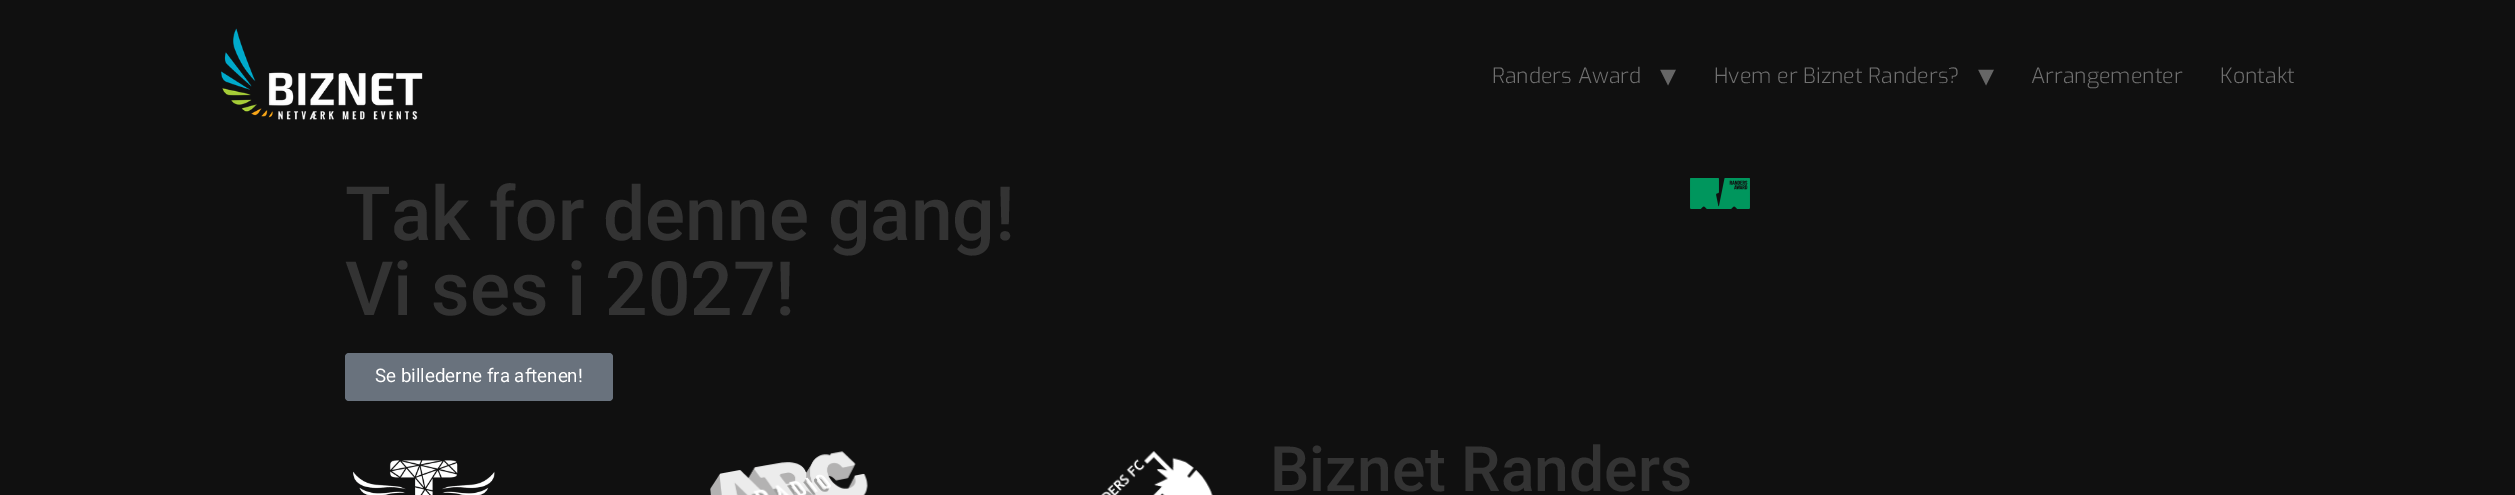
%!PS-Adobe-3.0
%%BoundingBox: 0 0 2515 495
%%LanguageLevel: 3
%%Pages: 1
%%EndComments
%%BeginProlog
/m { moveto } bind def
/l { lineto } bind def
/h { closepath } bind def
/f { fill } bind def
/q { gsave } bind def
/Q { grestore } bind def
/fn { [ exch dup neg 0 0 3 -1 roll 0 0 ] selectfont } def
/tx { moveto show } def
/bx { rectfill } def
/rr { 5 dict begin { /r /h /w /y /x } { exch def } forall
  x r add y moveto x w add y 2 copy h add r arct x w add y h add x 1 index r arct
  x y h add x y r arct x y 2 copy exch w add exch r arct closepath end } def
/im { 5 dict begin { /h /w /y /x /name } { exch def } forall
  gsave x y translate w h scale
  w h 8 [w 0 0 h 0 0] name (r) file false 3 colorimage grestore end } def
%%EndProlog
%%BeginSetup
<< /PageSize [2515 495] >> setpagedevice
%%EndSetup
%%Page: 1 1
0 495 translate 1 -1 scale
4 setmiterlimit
1 setgray
0 0 2515 495 bx
q 0 0 m 2515 0 l 2515 495 l 0 495 l h clip newpath
<< /ShadingType 2 /ColorSpace /DeviceRGB /Coords [1257 0 1258 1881] /Extend [true true] /Function << /FunctionType 3 /Domain [0 1] /Functions [<< /FunctionType 2 /Domain [0 1] /C0 [0.063 0.063 0.063] /C1 [0.063 0.063 0.063] /N 1 >> << /FunctionType 2 /Domain [0 1] /C0 [0.063 0.063 0.063] /C1 [0 0 0] /N 1 >>] /Bounds [0.32] /Encode [0 1 0 1] >> >> shfill Q
(image0.raw) 221 28 202 92 im
/Exo-Light 21.25 fn
0.443 setgray
(Randers Award) 1492 83 tx
/DejaVuSans-Regular 32 fn
0.4 setgray
(▾) 1660 86 tx
/Exo-Light 21.25 fn
0.443 setgray
(Hvem er Biznet Randers?) 1714 83 tx
/DejaVuSans-Regular 32 fn
0.4 setgray
(▾) 1978 86 tx
/Exo-Light 21.25 fn
0.443 setgray
(Arrangementer) 2031 83 tx
(Kontakt) 2220 83 tx
/Roboto-Medium 75 fn
0.2 setgray
(Tak for denne gang!) 345 240 tx
(Vi ses i 2027!) 345 315 tx
0.412 0.447 0.49 setrgbcolor
345 353 268 48 4 rr f
/Roboto-Regular 18.75 fn
1 setgray
(Se billederne fra aftenen!) 375 382 tx
(image1.raw) 1690 178 60 31 im
(image2.raw) 353 460 142 35 im
(image3.raw) 710 451 158 44 im
(image4.raw) 1101 451 112 44 im
/Roboto-Medium 62.5 fn
0.2 setgray
(Biznet Randers) 1270 491 tx
showpage
%%EOF
